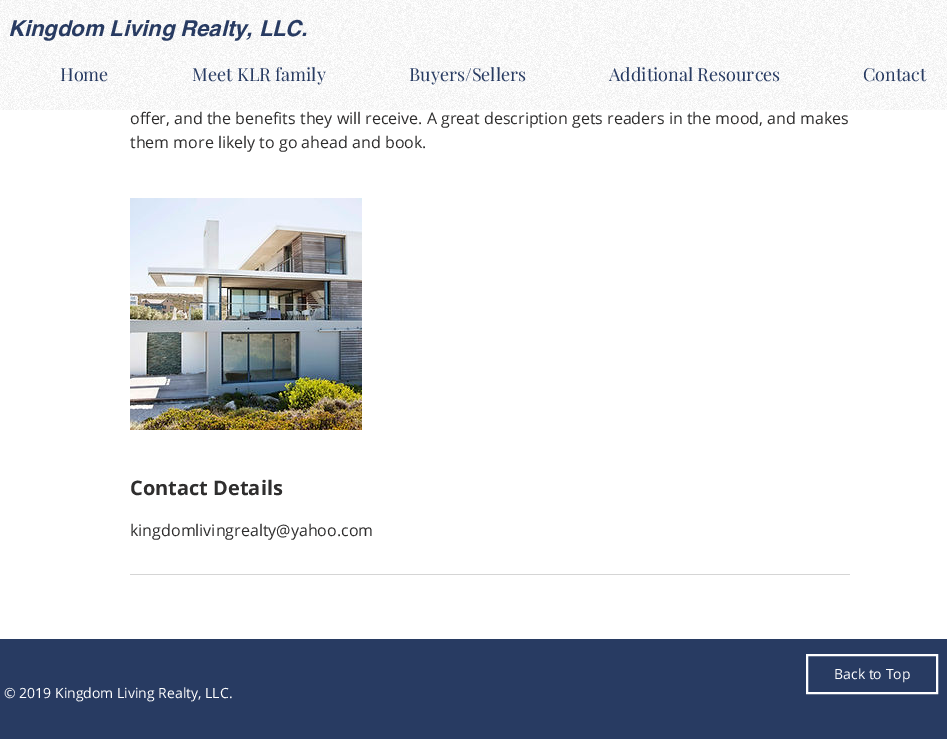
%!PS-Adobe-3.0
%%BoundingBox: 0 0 947 739
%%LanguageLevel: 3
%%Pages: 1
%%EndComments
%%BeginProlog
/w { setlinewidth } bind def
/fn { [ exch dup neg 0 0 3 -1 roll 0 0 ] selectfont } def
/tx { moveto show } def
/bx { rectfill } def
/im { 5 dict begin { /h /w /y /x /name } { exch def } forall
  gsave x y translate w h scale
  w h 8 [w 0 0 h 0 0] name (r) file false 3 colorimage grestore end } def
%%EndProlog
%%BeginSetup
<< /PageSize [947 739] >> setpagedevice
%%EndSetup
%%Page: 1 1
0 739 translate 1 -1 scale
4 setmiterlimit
1 setgray
0 0 947 739 bx
(image0.raw) 0 0 947 110 im
/helvetica-BoldItalic 22 fn
0.157 0.231 0.384 setrgbcolor
(Kingdom Living Realty, LLC.) 8 36 tx
/PlayfairDisplay-Regular 18 fn
(Home) 60 81 tx
(Meet KLR family) 192 81 tx
(Buyers/Sellers) 409 81 tx
(Additional Resources) 609 81 tx
(Contact) 863 81 tx
/OpenSans-Regular 16 fn
0.184 0.18 0.18 setrgbcolor
(offer, and the benefits they will receive. A great description gets readers in the mood, and makes) 130 124 tx
(them more likely to go ahead and book.) 130 148 tx
(image1.raw) 130 198 232 232 im
/OpenSans-Bold 20 fn
(Contact Details) 130 495 tx
/OpenSans-Regular 16 fn
(kingdomlivingrealty@yahoo.com) 130 536 tx
0.835 setgray
130 574 720 1 bx
0.157 0.231 0.384 setrgbcolor
0 639 947 100 bx
1 setgray
2 w
807 655 130 38 rectstroke
/OpenSans-Regular 14 fn
(Back to Top) 834 679 tx
(© 2019 Kingdom Living Realty, LLC.) 4 698 tx
showpage
%%EOF
